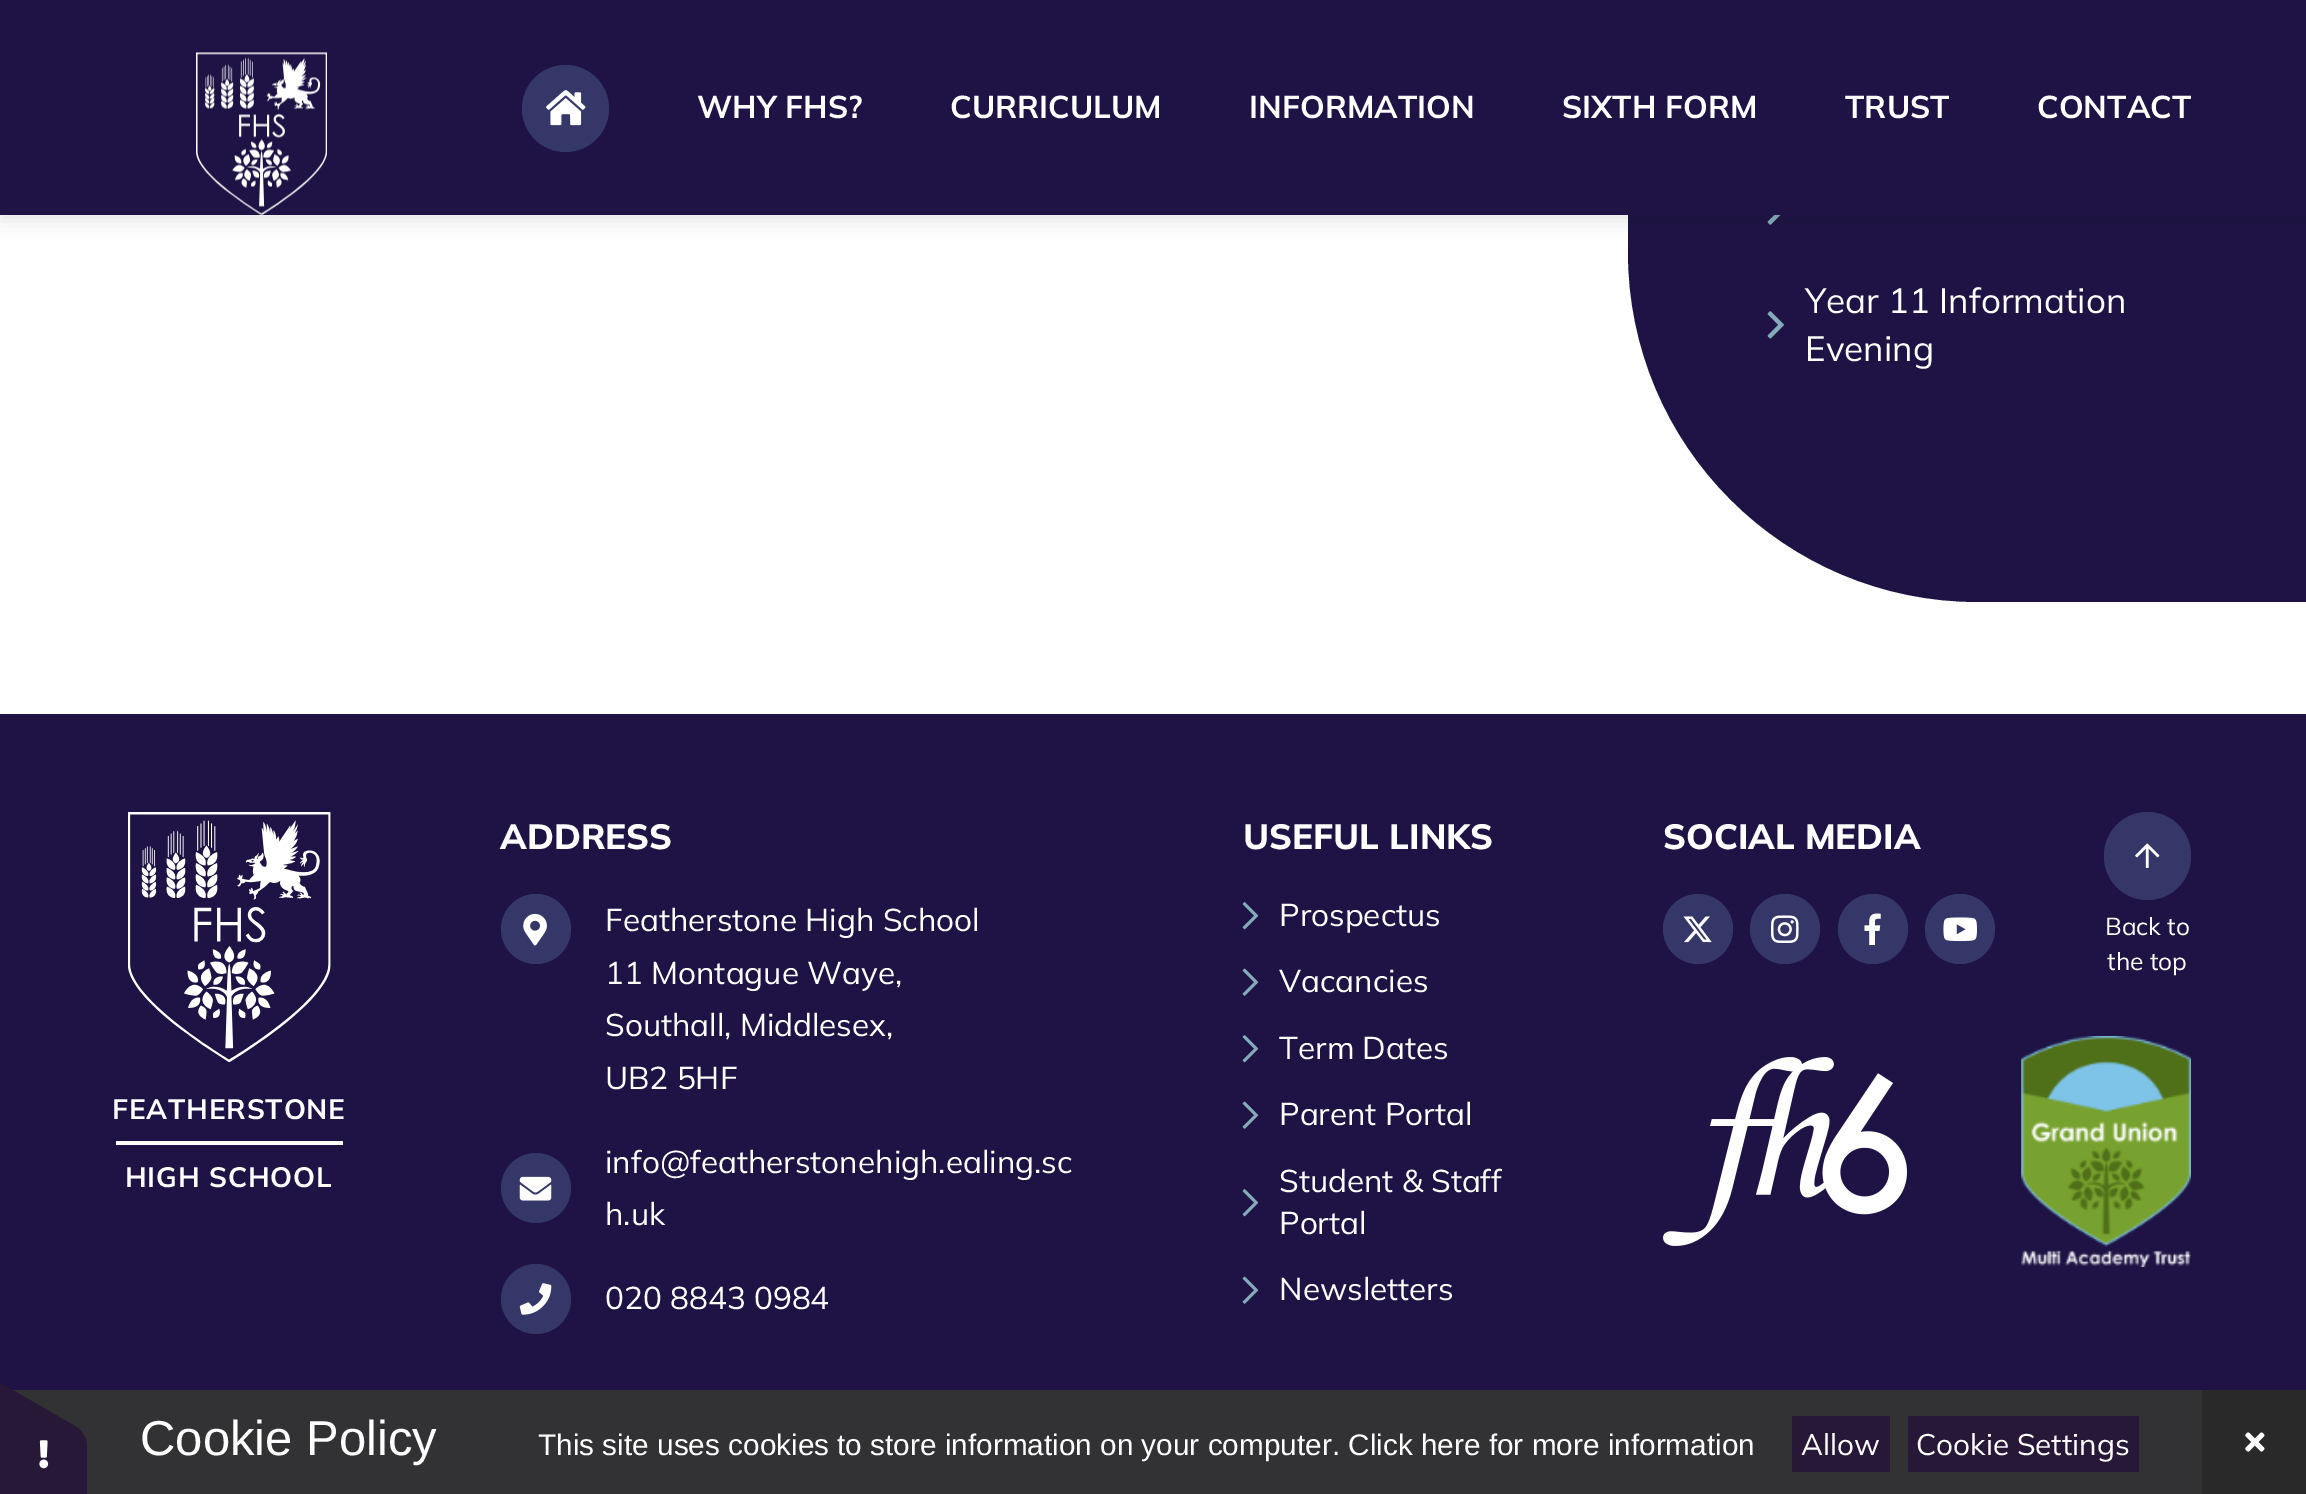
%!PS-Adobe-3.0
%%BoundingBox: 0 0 2306 1494
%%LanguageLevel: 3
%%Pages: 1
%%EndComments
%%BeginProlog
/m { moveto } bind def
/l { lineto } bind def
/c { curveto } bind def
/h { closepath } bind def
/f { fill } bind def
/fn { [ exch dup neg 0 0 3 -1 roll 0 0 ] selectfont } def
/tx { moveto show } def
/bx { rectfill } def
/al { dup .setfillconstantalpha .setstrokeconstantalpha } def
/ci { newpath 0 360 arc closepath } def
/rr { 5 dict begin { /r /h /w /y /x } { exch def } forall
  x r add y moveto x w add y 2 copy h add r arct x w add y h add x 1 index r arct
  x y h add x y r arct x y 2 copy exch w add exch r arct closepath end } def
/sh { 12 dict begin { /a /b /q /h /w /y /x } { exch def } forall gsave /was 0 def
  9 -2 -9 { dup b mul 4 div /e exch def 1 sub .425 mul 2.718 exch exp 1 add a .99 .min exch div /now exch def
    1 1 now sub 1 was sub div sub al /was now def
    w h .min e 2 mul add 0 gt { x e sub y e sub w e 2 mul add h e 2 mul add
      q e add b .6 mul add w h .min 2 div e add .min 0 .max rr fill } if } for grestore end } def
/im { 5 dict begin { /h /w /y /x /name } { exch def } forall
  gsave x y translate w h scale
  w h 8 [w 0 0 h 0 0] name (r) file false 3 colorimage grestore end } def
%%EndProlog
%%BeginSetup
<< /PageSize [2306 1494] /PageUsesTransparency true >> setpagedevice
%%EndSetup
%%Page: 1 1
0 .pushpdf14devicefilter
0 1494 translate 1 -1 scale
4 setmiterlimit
0.118 0.075 0.267 setrgbcolor
0 0 2306 1494 bx
0.196 0.192 0.204 setrgbcolor
12 1390 2190 104 bx
1 setgray
0 215 2306 499 bx
0.118 0.075 0.267 setrgbcolor
1628 -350 m 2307 -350 l 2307 602 l 1978 602 l 1784.5 602 1628 445.5 1628 252 c h f
(image2.raw) 1767 215 14 10 im
0 setgray
0 5 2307 216 0 9 0.1 sh
0.118 0.075 0.267 setrgbcolor
0 2 2306 213 bx
(image0.raw) 196 52 131 163 im
0.212 0.216 0.412 setrgbcolor
565.5 108.5 43.5 ci f
(image1.raw) 546 90 40 36 im
/Mulish-Bold 31.5 fn
1 setgray
(WHY FHS?) 697 118 tx
(CURRICULUM) 950 118 tx
(INFORMATION) 1249 118 tx
(SIXTH FORM) 1562 118 tx
(TRUST) 1845 118 tx
(CONTACT) 2037 118 tx
(image3.raw) 1767 311 17 28 im
/Mulish-Regular 35 fn
(Year 11 Information) 1805 313 tx
(Evening) 1805 361 tx
/Mulish-ExtraBold 35 fn
(ADDRESS) 500 849 tx
0.212 0.216 0.412 setrgbcolor
536 929 35 ci f
(image4.raw) 523 913 24 33 im
/Mulish-Regular 31.5 fn
1 setgray
(Featherstone High School) 605 931 tx
(11 Montague Waye,) 605 984 tx
(Southall, Middlesex,) 605 1036 tx
(UB2 5HF) 605 1089 tx
0.212 0.216 0.412 setrgbcolor
536 1188 35 ci f
(image5.raw) 519 1176 33 25 im
1 setgray
(info@featherstonehigh.ealing.sc) 605 1173 tx
(h.uk) 605 1225 tx
0.212 0.216 0.412 setrgbcolor
536 1299 35 ci f
(image6.raw) 519 1283 33 32 im
1 setgray
(020 8843 0984) 605 1309 tx
/Mulish-ExtraBold 35 fn
(USEFUL LINKS) 1243 849 tx
(image7.raw) 1242 902 17 28 im
/Mulish-Regular 31.5 fn
(Prospectus) 1279 926 tx
(image8.raw) 1242 968 17 28 im
(Vacancies) 1279 992 tx
(image7.raw) 1242 1035 17 28 im
(Term Dates) 1279 1059 tx
(image8.raw) 1242 1101 17 28 im
(Parent Portal) 1279 1125 tx
(Student & Staff) 1279 1192 tx
(image7.raw) 1242 1189 17 28 im
(Portal) 1279 1234 tx
(image8.raw) 1242 1276 17 28 im
(Newsletters) 1279 1300 tx
/Mulish-ExtraBold 35 fn
(SOCIAL MEDIA) 1663 849 tx
0.212 0.216 0.412 setrgbcolor
1698 929 35 ci f
(image9.raw) 1683 916 29 27 im
1785 929 35 ci f
(image10.raw) 1771 915 28 28 im
1873 929 35 ci f
(image11.raw) 1864 913 17 32 im
1960 929 35 ci f
(image12.raw) 1943 917 34 25 im
2104 812 87 88 43.5 rr f
(image13.raw) 2135 843 25 25 im
/Mulish-Regular 24.5 fn
1 setgray
(Back to) 2105 935 tx
(the top) 2107 970 tx
(image14.raw) 1663 1057 244 189 im
(image15.raw) 2021 1036 170 231 im
(image16.raw) 128 812 203 250 im
/Mulish-Bold 28 fn
112 1119 m 0.8 0 (FEATHERSTONE) ashow
116 1141 227 4 bx
125 1187 m 0.8 0 (HIGH SCHOOL) ashow
0.157 0.094 0.22 setrgbcolor
87 1447 m 87 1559 l 87 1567 84 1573 80 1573 c -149 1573 l -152 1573 -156 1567 -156 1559 c -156 1447 l -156 1439 -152 1433 -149 1433 c 80 1433 l 84 1433 87 1439 87 1447 c h f
-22 1370 m 75 1426 l 82 1430 85 1436 83 1439 c -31 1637 l -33 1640 -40 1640 -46 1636 c -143 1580 l -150 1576 -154 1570 -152 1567 c -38 1369 l -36 1366 -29 1366 -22 1370 c h f
(image17.raw) 39 1440 10 29 im
/LiberationSans-Regular 49 fn
1 setgray
(Cookie Policy) 140 1455 tx
/LiberationSans-Regular 29.75 fn
(This site uses cookies to store information on your computer. Click here for more information) 538 1455 tx
0.157 0.094 0.22 setrgbcolor
1792 1416 98 56 bx
/Mulish-Regular 29.75 fn
1 setgray
(Allow) 1801 1455 tx
0.157 0.094 0.22 setrgbcolor
1908 1416 231 56 bx
1 setgray
(Cookie Settings) 1916 1455 tx
0.161 setgray
2202 1390 104 104 bx
(image18.raw) 2245 1432 20 20 im
.poppdf14devicefilter showpage
%%EOF
